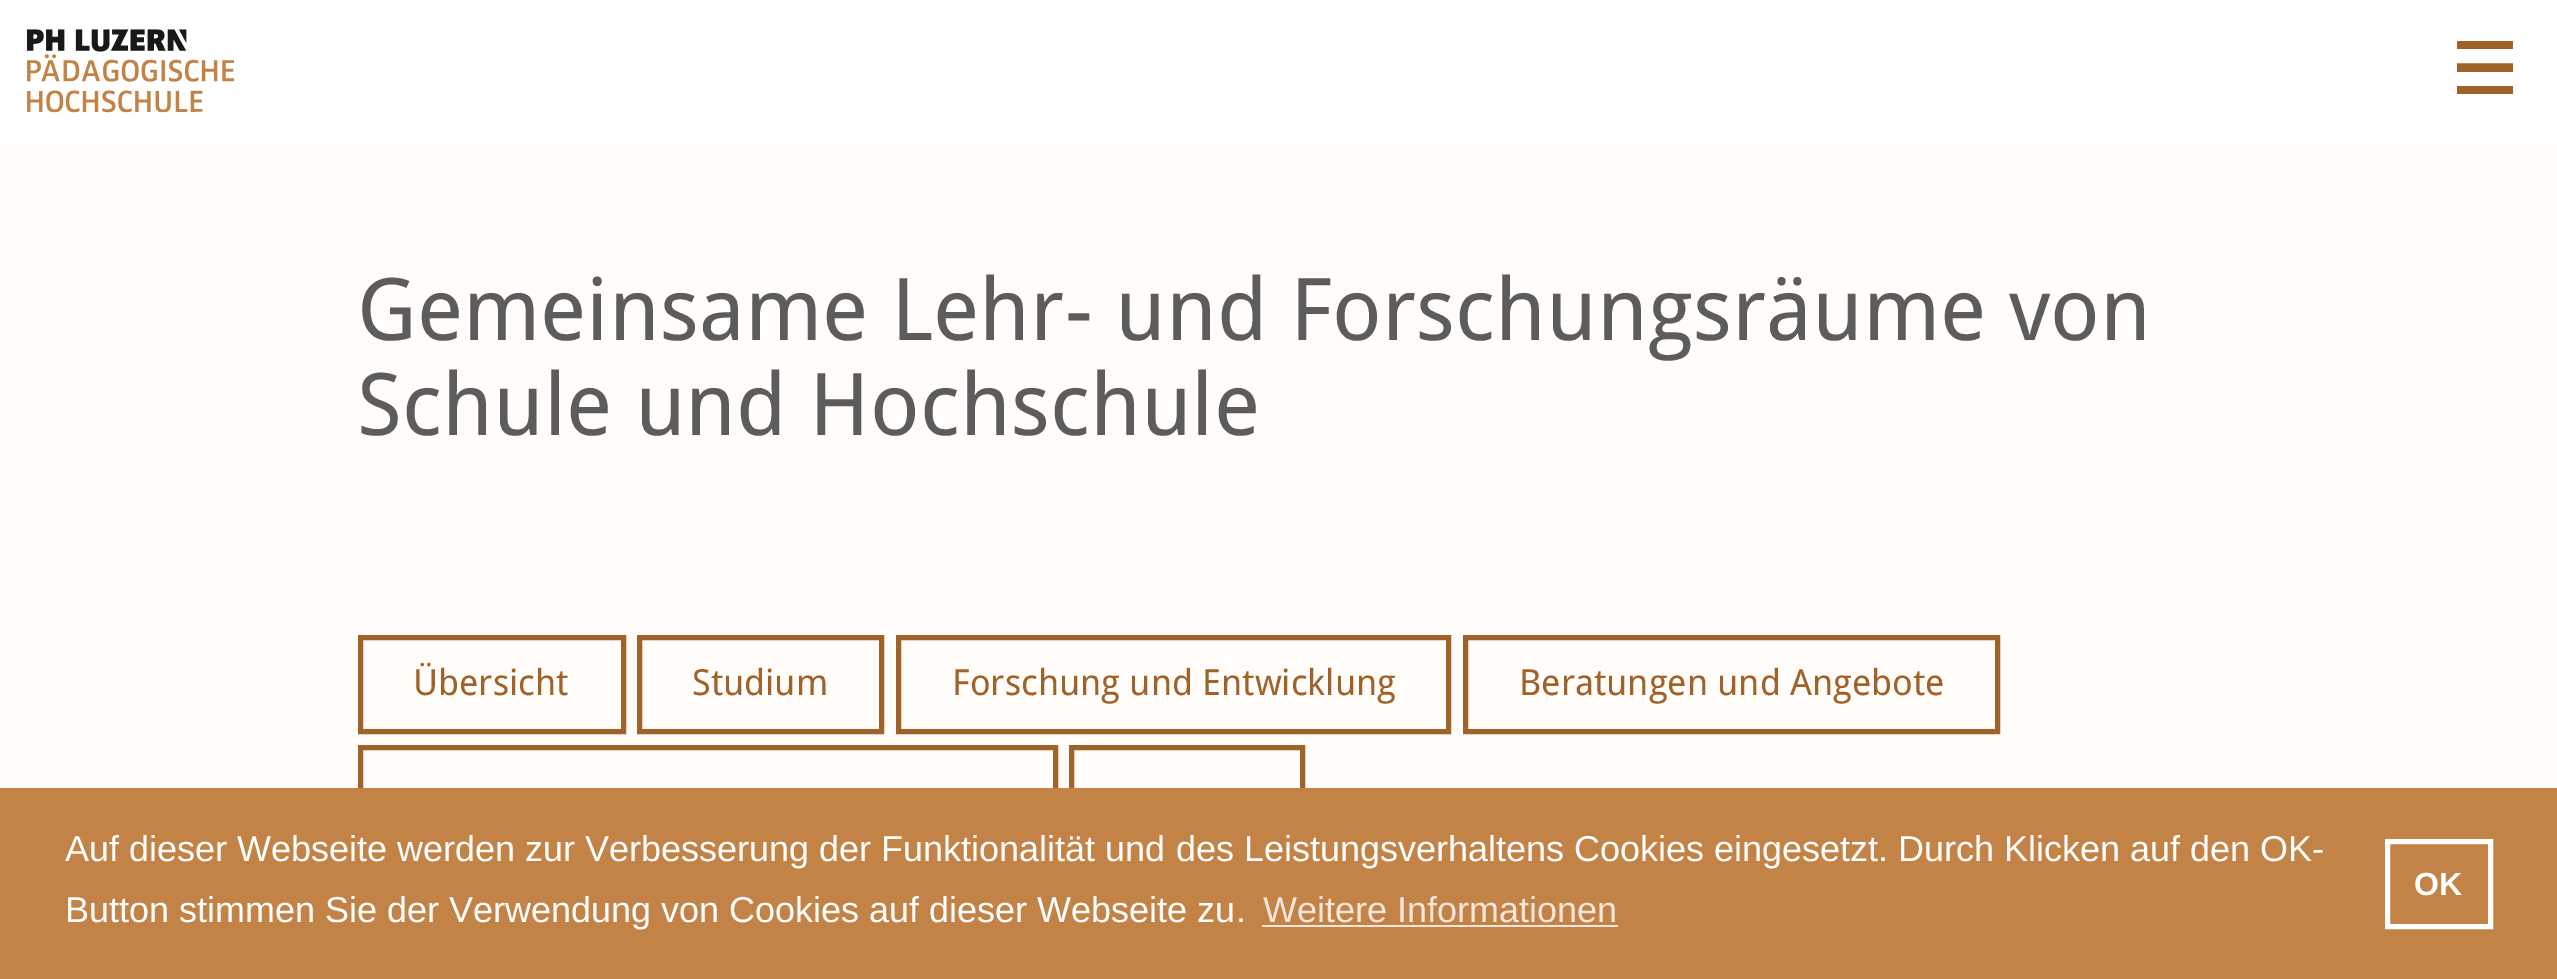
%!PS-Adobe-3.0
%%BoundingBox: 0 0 2557 979
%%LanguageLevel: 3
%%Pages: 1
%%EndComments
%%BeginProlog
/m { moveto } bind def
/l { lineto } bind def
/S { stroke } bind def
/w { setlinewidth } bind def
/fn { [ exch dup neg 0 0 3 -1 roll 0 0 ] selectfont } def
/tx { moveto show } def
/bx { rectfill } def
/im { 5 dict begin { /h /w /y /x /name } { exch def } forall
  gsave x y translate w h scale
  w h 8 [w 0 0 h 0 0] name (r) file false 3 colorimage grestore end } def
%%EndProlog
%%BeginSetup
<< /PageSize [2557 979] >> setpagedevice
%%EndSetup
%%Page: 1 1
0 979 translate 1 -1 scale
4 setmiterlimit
1 0.988 0.98 setrgbcolor
0 0 2557 979 bx
1 setgray
0 0 2557 142 bx
(image0.raw) 27 29 207 84 im
0.624 0.388 0.165 setrgbcolor
2457 41 56 8 bx
8.4 w
2457 67.5 m 2513 67.5 l S
2457 86 56 8 bx
/DroidSans-Regular 86.4 fn
0.361 setgray
(Gemeinsame Lehr- und Forschungsräume von) 357 340 tx
(Schule und Hochschule) 357 435 tx
0.624 0.388 0.165 setrgbcolor
5 w
360.5 637.5 263 94 rectstroke
/DroidSans-Regular 36 fn
(Übersicht) 413 695 tx
639.5 637.5 242 94 rectstroke
(Studium) 692 695 tx
898.5 637.5 550 94 rectstroke
(Forschung und Entwicklung) 952 695 tx
1465.5 637.5 532 94 rectstroke
(Beratungen und Angebote) 1519 695 tx
360.5 747.5 695 94 rectstroke
1071.5 747.5 231 94 rectstroke
0.765 0.51 0.275 setrgbcolor
0 788 2557 191 bx
/LiberationSans-Regular 36 fn
1 setgray
(Auf dieser Webseite werden zur Verbesserung der Funktionalität und des Leistungsverhaltens Cookies eingesetzt. Durch Klicken auf den OK-) 65 861 tx
(Button stimmen Sie der Verwendung von Cookies auf dieser Webseite zu.) 65 922 tx
0.953 0.902 0.855 setrgbcolor
(Weitere Informationen) 1263 922 tx
1262 925 356 2 bx
1 setgray
2387.5 841.5 103 85 rectstroke
/LiberationSans-Bold 32 fn
(OK) 2414 895 tx
showpage
%%EOF
